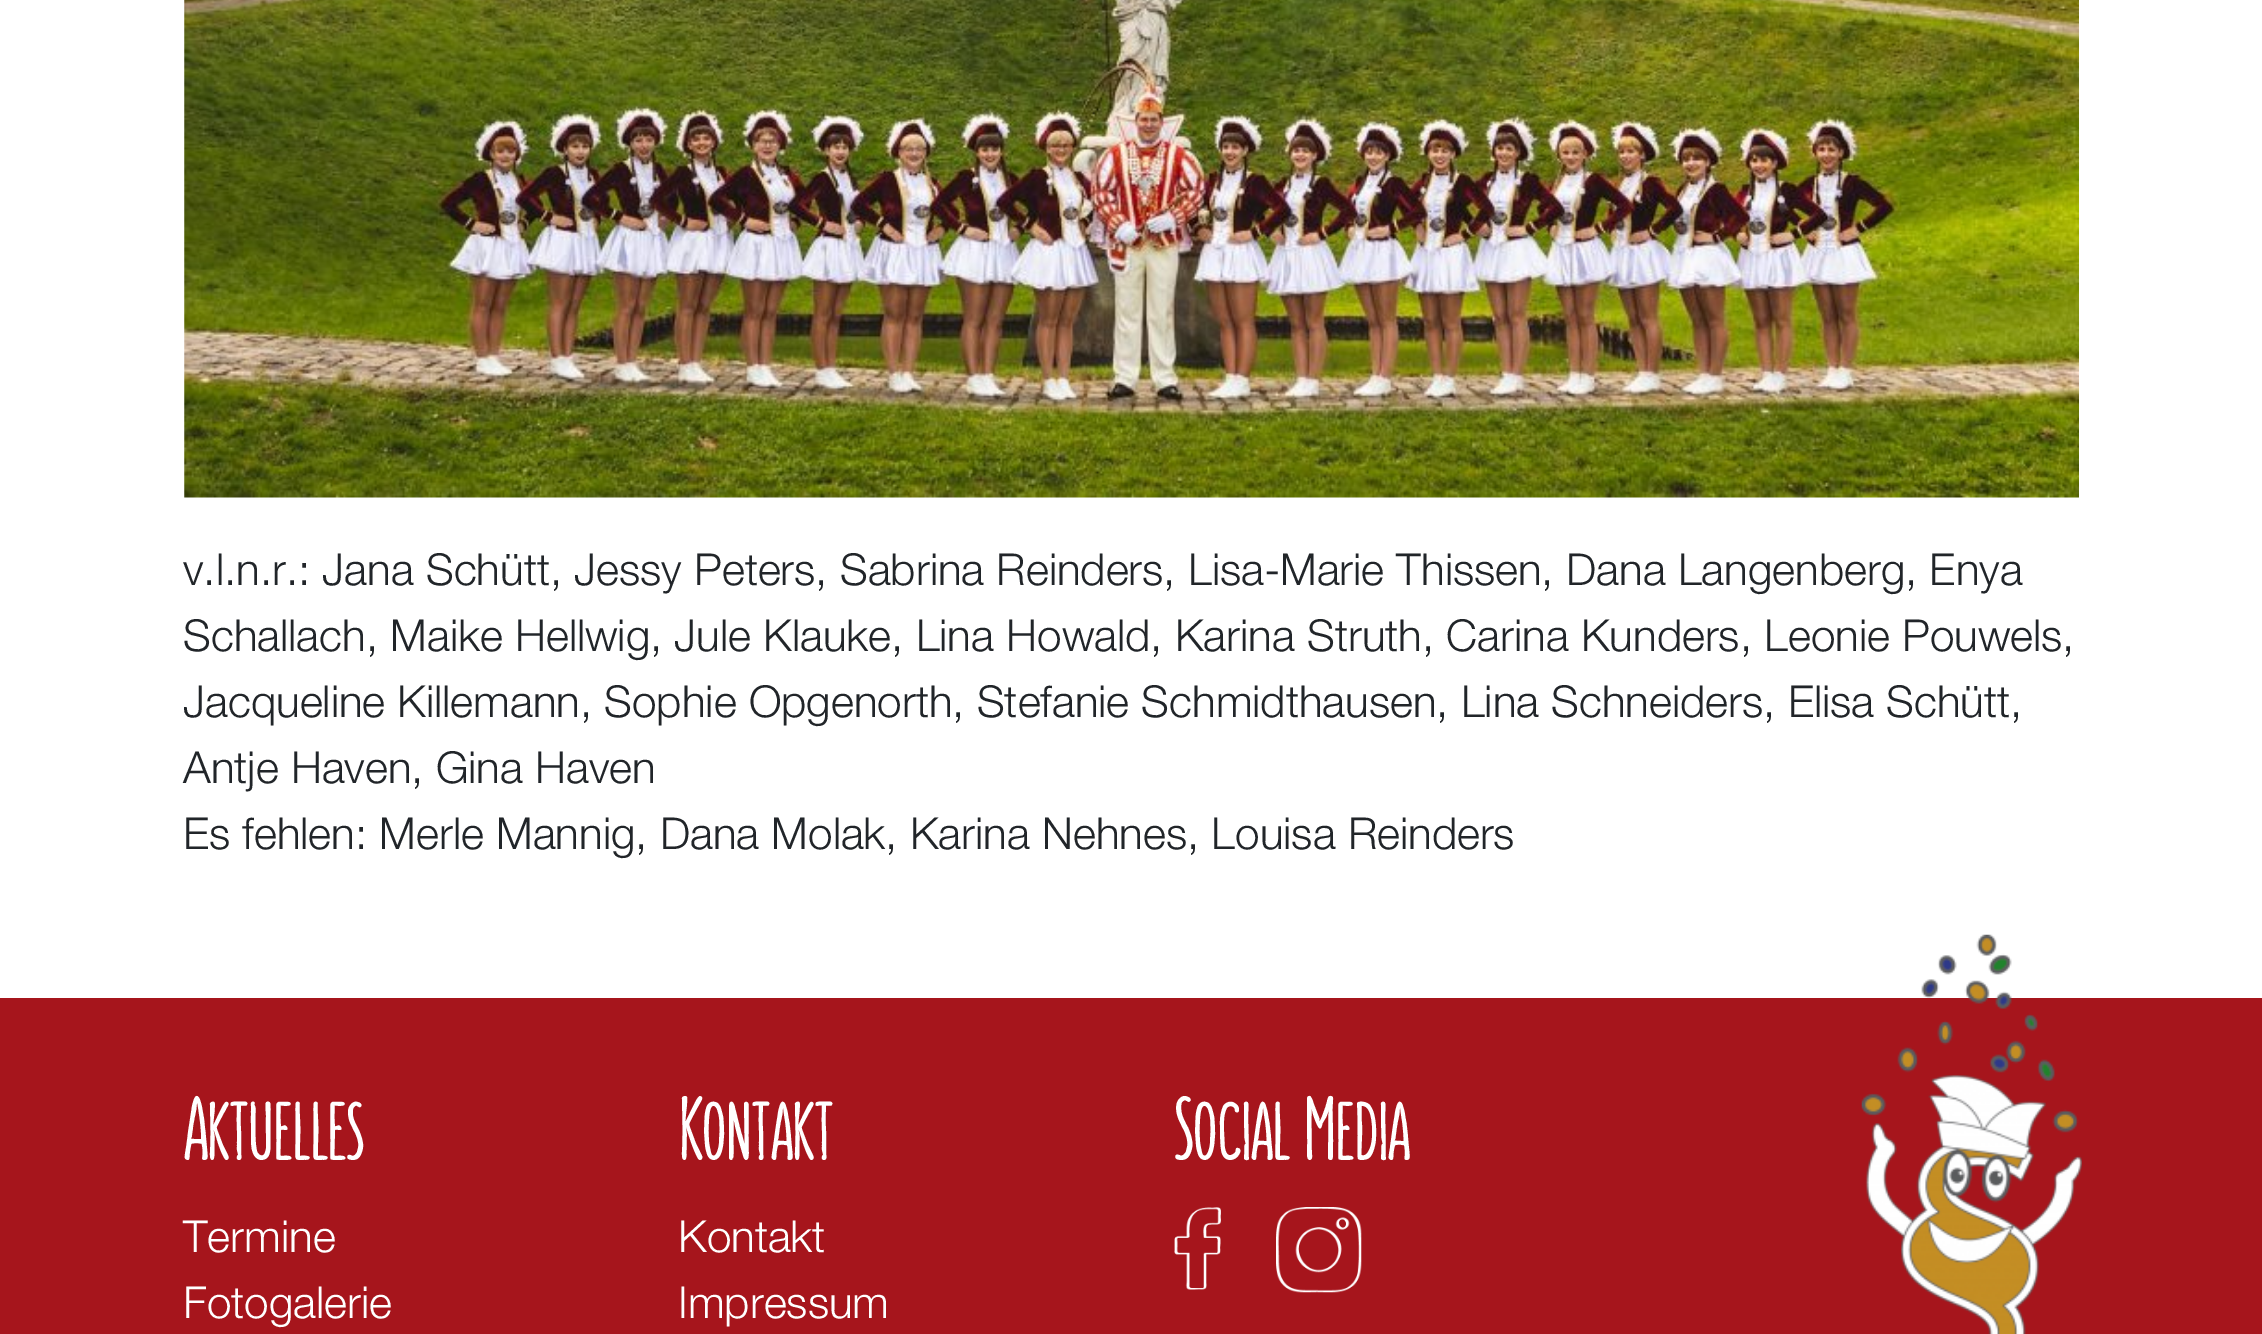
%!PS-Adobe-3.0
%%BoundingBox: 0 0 2262 1334
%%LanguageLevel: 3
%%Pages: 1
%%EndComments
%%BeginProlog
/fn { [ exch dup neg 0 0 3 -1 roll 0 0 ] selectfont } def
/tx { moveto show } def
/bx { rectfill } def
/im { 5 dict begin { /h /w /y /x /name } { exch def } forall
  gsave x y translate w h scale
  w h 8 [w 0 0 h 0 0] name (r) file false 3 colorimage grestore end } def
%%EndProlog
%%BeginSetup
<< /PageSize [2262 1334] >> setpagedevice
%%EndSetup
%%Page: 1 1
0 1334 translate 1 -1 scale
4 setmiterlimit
1 setgray
0 0 2262 1334 bx
(image0.raw) 184 0 1895 498 im
/HelveticaNeue-Light 44 fn
0.129 0.145 0.161 setrgbcolor
(v.l.n.r.: Jana Schütt, Jessy Peters, Sabrina Reinders, Lisa-Marie Thissen, Dana Langenberg, Enya) 183 585 tx
(Schallach, Maike Hellwig, Jule Klauke, Lina Howald, Karina Struth, Carina Kunders, Leonie Pouwels,) 183 651 tx
(Jacqueline Killemann, Sophie Opgenorth, Stefanie Schmidthausen, Lina Schneiders, Elisa Schütt,) 183 717 tx
(Antje Haven, Gina Haven) 183 783 tx
(Es fehlen: Merle Mannig, Dana Molak, Karina Nehnes, Louisa Reinders) 183 849 tx
0.651 0.082 0.11 setrgbcolor
0 998 2262 336 bx
/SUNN-Bold 88 fn
1 setgray
(Aktuelles) 183 1160 tx
/HelveticaNeue-Light 44 fn
(Termine) 183 1252 tx
(Fotogalerie) 183 1318 tx
/SUNN-Bold 88 fn
(Kontakt) 678 1160 tx
/HelveticaNeue-Light 44 fn
(Kontakt) 678 1252 tx
(Impressum) 678 1318 tx
/SUNN-Bold 88 fn
(Social Media) 1173 1160 tx
(image1.raw) 1174 1207 47 83 im
(image2.raw) 1276 1207 86 86 im
(image3.raw) 1861 934 221 400 im
showpage
%%EOF
